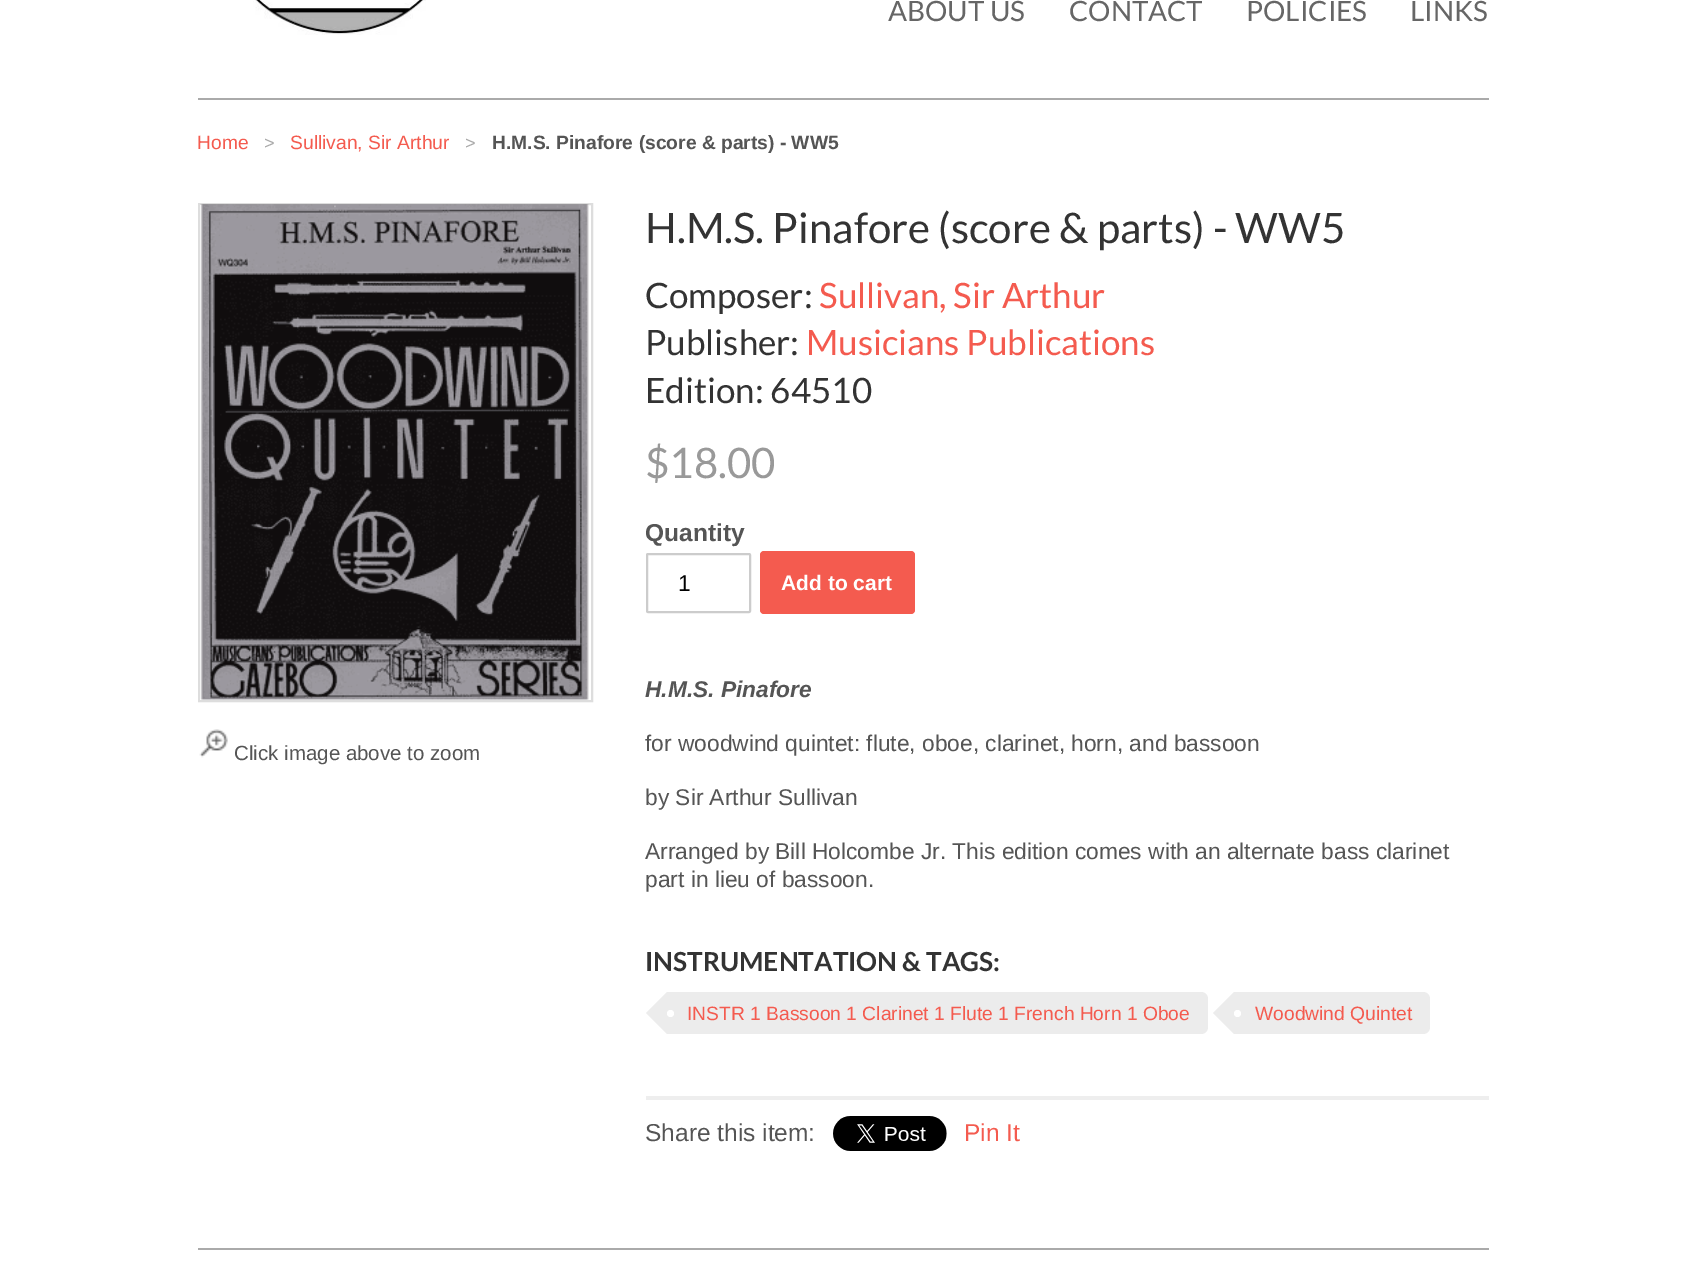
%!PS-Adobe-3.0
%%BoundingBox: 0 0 1685 1287
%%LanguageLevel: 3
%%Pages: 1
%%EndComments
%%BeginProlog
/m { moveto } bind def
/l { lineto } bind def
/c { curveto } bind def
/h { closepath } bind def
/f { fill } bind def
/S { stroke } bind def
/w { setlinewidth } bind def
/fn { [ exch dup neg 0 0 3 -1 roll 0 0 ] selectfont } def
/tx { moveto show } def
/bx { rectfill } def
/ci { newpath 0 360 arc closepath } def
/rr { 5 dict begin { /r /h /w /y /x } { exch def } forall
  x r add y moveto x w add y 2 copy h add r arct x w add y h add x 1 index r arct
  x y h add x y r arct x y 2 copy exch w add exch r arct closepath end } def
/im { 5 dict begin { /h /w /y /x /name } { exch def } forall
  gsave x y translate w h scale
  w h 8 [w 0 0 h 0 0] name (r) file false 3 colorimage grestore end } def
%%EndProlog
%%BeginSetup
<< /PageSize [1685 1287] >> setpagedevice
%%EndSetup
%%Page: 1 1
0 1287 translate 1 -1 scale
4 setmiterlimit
1 setgray
0 0 1685 1287 bx
0.667 setgray
198 98 1291 2 bx
(image0.raw) 253 0 173 35 im
/Lato-Regular 28 fn
0.4 setgray
(ABOUT US) 888 21 tx
(CONTACT) 1069 21 tx
(POLICIES) 1246 21 tx
(LINKS) 1410 21 tx
/LiberationSans-Regular 19.25 fn
0.957 0.357 0.31 setrgbcolor
(Home) 197 149 tx
/LiberationSans-Regular 18 fn
0.667 setgray
(>) 264 149 tx
/LiberationSans-Regular 19.25 fn
0.957 0.357 0.31 setrgbcolor
(Sullivan, Sir Arthur) 290 149 tx
/LiberationSans-Regular 18 fn
0.667 setgray
(>) 465 149 tx
/LiberationSans-Bold 19.25 fn
0.333 setgray
(H.M.S. Pinafore \(score & parts\) - WW5) 492 149 tx
0.867 setgray
2 w
199 204 393 497 rectstroke
(image1.raw) 200 204 389 496 im
(image2.raw) 199 729 29 29 im
/LiberationSans-Regular 20.5 fn
0.333 setgray
(Click image above to zoom) 234 760 tx
/Lato-Regular 42 fn
0.2 setgray
(H.M.S. Pinafore \(score & parts\) - WW5) 645 243 tx
/Lato-Regular 35 fn
(Composer:) 645 308 tx
0.957 0.357 0.31 setrgbcolor
(Sullivan, Sir Arthur) 819 308 tx
0.2 setgray
(Publisher:) 645 355 tx
0.957 0.357 0.31 setrgbcolor
(Musicians Publications) 806 355 tx
0.2 setgray
(Edition: 64510) 645 403 tx
/Lato-Regular 42 fn
0.6 setgray
($18.00) 645 478 tx
/LiberationSans-Bold 24.5 fn
0.333 setgray
(Quantity) 645 541 tx
0.8 setgray
647 554 103 58 1 rr S
/LiberationSans-Regular 22.75 fn
0 setgray
(1) 678 591 tx
0.957 0.357 0.31 setrgbcolor
760 551 155 63 4 rr f
/LiberationSans-Bold 21 fn
1 setgray
(Add to cart) 781 590 tx
/LiberationSans-BoldItalic 22.75 fn
0.333 setgray
(H.M.S. Pinafore) 645 697 tx
/LiberationSans-Regular 22.75 fn
(for woodwind quintet: flute, oboe, clarinet, horn, and bassoon) 645 751 tx
(by Sir Arthur Sullivan) 645 805 tx
(Arranged by Bill Holcombe Jr. This edition comes with an alternate bass clarinet) 645 859 tx
(part in lieu of bassoon.) 645 887 tx
/Lato-Bold 26.25 fn
0.2 setgray
(INSTRUMENTATION & TAGS:) 645 971 tx
0.925 setgray
667 992 m 1201 992 l 1205 992 1208 995 1208 999 c 1208 1027 l 1208 1031 1205 1034 1201 1034 c 667 1034 l h f
667 992 m 667 1034 l 646 1013 l h f
1 setgray
670.5 1013.5 3.5 ci f
/LiberationSans-Regular 19.25 fn
0.957 0.357 0.31 setrgbcolor
(INSTR 1 Bassoon 1 Clarinet 1 Flute 1 French Horn 1 Oboe) 687 1020 tx
0.925 setgray
1234 992 m 1423 992 l 1427 992 1430 995 1430 999 c 1430 1027 l 1430 1031 1427 1034 1423 1034 c 1234 1034 l h f
1234 992 m 1234 1034 l 1213 1013 l h f
1 setgray
1237.5 1013.5 3.5 ci f
0.957 0.357 0.31 setrgbcolor
(Woodwind Quintet) 1255 1020 tx
0.933 setgray
646 1096 843 4 bx
/LiberationSans-Regular 24.5 fn
0.333 setgray
(Share this item:) 645 1141 tx
(image3.raw) 833 1116 114 35 im
0.957 0.357 0.31 setrgbcolor
(Pin It) 964 1141 tx
0.667 setgray
198 1248 1291 2 bx
showpage
%%EOF
